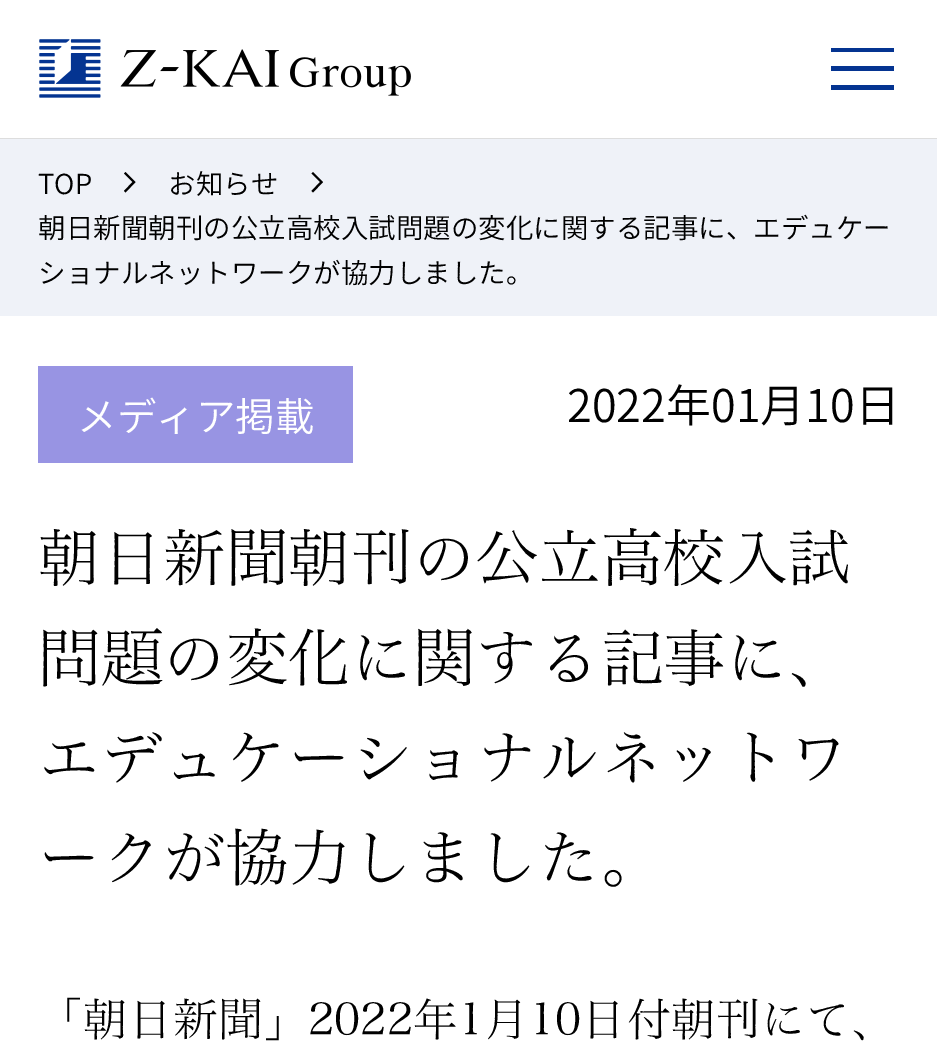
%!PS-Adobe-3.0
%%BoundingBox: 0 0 937 1046
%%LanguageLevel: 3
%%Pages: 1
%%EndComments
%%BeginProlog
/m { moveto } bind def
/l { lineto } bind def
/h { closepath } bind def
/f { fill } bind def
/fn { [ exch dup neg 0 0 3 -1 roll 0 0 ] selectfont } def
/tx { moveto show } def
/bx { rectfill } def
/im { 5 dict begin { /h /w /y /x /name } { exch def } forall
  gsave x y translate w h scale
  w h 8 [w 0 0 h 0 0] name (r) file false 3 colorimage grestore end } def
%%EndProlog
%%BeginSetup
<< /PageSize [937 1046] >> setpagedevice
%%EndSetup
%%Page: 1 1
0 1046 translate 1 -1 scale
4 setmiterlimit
1 setgray
0 0 937 1046 bx
0.867 setgray
0 138 937 1 bx
(image0.raw) 39 39 372 59 im
0.016 0.204 0.569 setrgbcolor
831 48 m 894 48 l 894 52 l 831 52 l h 831 66 m 894 66 l 894 71 l 831 71 l h 831 85 m 894 85 l 894 90 l 831 90 l h f
0.937 0.949 0.973 setrgbcolor
0 139 937 177 bx
/NotoSansCJKJP-Light 27.5 fn
0 setgray
(TOP) 38 194 tx
125.5 192.5 m 124 191 l 132.5 182 l 124 173.5 l 125.5 172 l 135.5 182 l h f
(お知らせ) 168 194 tx
313 192.5 m 311.5 191 l 320 182 l 311.5 173.5 l 313 172 l 323 182 l h f
(朝日新聞朝刊の公立高校入試問題の変化に関する記事に、エデュケー) 38 238 tx
(ショナルネットワークが協力しました。) 38 283 tx
0.596 0.58 0.89 setrgbcolor
38 366 315 97 bx
/NotoSansCJKJP-Light 39.5 fn
1 setgray
(メディア掲載) 77 431 tx
/NotoSansCJKJP-Light 45 fn
0 setgray
(2022年01月10日) 567 422 tx
/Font-ExtraLight 62.5 fn
(朝日新聞朝刊の公立高校入試) 38 581 tx
(問題の変化に関する記事に、) 38 681 tx
(エデュケーショナルネットワ) 38 781 tx
(ークが協力しました。) 38 881 tx
/Font-ExtraLight 45 fn
(「朝日新聞」2022年1月10日付朝刊にて、) 38 1036 tx
showpage
%%EOF
